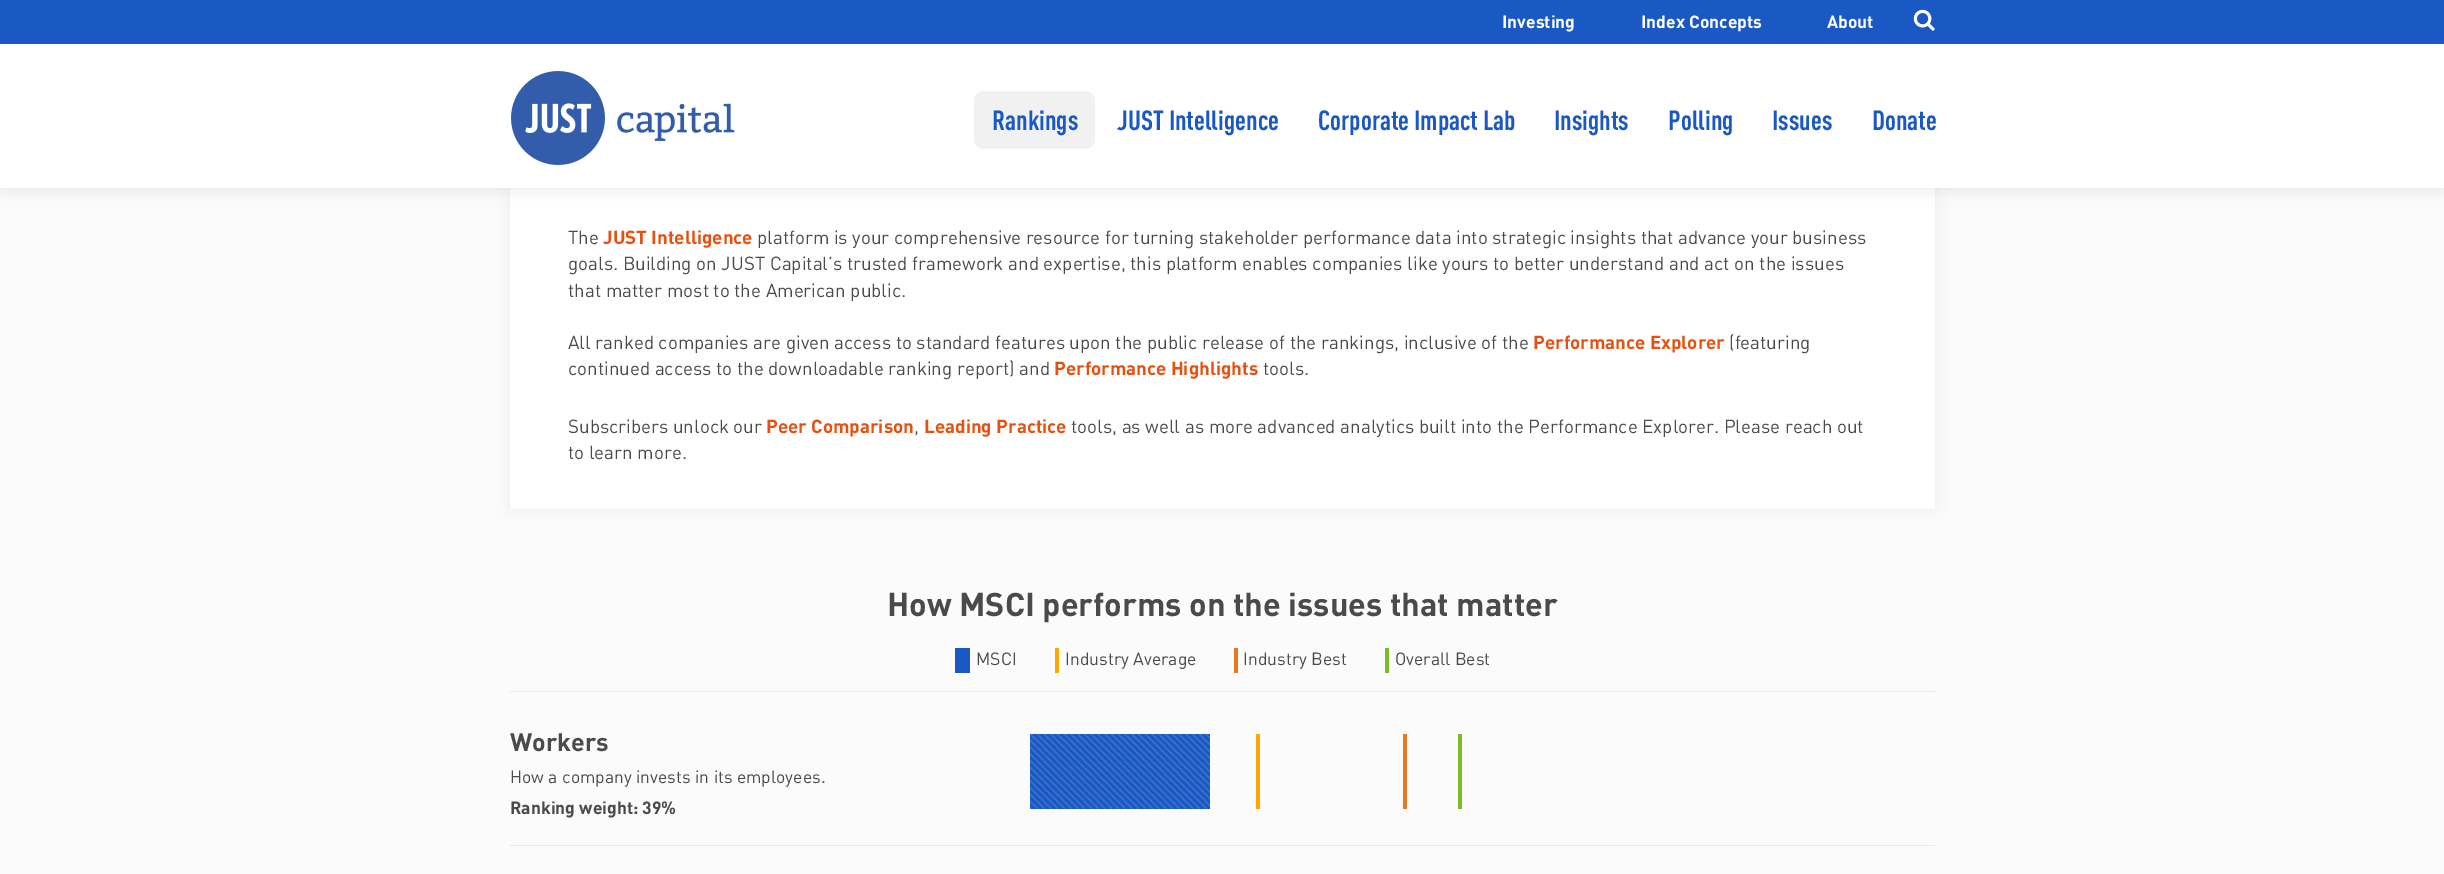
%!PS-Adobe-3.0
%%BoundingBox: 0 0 2444 874
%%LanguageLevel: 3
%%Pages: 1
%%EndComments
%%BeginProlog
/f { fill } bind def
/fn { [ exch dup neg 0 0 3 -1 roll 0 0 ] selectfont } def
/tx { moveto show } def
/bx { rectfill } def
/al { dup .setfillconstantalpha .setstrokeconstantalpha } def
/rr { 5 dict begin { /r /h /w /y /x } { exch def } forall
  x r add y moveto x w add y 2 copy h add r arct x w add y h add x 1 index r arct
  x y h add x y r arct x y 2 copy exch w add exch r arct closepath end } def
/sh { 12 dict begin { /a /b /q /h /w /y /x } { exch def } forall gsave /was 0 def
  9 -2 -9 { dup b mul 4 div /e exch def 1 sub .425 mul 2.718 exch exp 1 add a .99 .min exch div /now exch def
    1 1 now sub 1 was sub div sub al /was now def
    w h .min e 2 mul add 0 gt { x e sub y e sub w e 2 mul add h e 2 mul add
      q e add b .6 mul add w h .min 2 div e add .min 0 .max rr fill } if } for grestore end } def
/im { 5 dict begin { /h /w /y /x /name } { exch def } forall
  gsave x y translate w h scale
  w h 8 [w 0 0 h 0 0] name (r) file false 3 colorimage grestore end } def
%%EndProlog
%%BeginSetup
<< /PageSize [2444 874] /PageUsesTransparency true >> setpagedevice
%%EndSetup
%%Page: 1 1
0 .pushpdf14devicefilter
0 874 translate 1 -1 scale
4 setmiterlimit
0.984 setgray
0 0 2444 874 bx
0 setgray
510 118 1425 391 0 9 0.05 sh
1 setgray
510 188 1425 321 bx
0 setgray
0 0 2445 188 0 9 0.1 sh
1 setgray
0 44 2444 144 bx
0.102 0.349 0.769 setrgbcolor
0 0 2444 44 bx
/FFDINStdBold-Regular 17.5 fn
1 setgray
(Investing) 1502 28 tx
(Index Concepts) 1641 28 tx
(About) 1827 28 tx
(image0.raw) 1913 9 22 22 im
(image1.raw) 511 71 224 94 im
0.945 0.945 0.949 setrgbcolor
974 91 121 58 10 rr f
/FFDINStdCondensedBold-Regular 27.5 fn
0.102 0.349 0.769 setrgbcolor
(Rankings) 992 130 tx
(JUST Intelligence) 1117 130 tx
(Corporate Impact Lab) 1318 130 tx
(Insights) 1554 130 tx
(Polling) 1668 130 tx
(Issues) 1772 130 tx
(Donate) 1872 130 tx
/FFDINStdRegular-Regular 18.75 fn
0.29 setgray
(The) 568 244 tx
/FFDINStdBold-Regular 18.75 fn
0.902 0.318 0.059 setrgbcolor
(JUST Intelligence) 603 244 tx
/FFDINStdRegular-Regular 18.75 fn
0.29 setgray
(platform is your comprehensive resource for turning stakeholder performance data into strategic insights that advance your business) 757 244 tx
(goals. Building on JUST Capital’s trusted framework and expertise, this platform enables companies like yours to better understand and act on the issues) 568 270 tx
(that matter most to the American public.) 568 297 tx
(All ranked companies are given access to standard features upon the public release of the rankings, inclusive of the) 568 349 tx
/FFDINStdBold-Regular 18.75 fn
0.902 0.318 0.059 setrgbcolor
(Performance Explorer) 1533 349 tx
/FFDINStdRegular-Regular 18.75 fn
0.29 setgray
(\(featuring) 1729 349 tx
(continued access to the downloadable ranking report\) and) 568 375 tx
/FFDINStdBold-Regular 18.75 fn
0.902 0.318 0.059 setrgbcolor
(Performance Highlights) 1054 375 tx
/FFDINStdRegular-Regular 18.75 fn
0.29 setgray
(tools.) 1263 375 tx
(Subscribers unlock our) 568 433 tx
/FFDINStdBold-Regular 18.75 fn
0.902 0.318 0.059 setrgbcolor
(Peer Comparison) 766 433 tx
/FFDINStdRegular-Regular 18.75 fn
0.29 setgray
(,) 914 433 tx
/FFDINStdBold-Regular 18.75 fn
0.902 0.318 0.059 setrgbcolor
(Leading Practice) 924 433 tx
/FFDINStdRegular-Regular 18.75 fn
0.29 setgray
(tools, as well as more advanced analytics built into the Performance Explorer. Please reach out) 1071 433 tx
(to learn more.) 568 459 tx
/FFDINStdBold-Regular 32.5 fn
(How MSCI performs on the issues that matter) 887 616 tx
0.102 0.349 0.769 setrgbcolor
955 648 15 25 bx
/FFDINStdRegular-Regular 17.5 fn
0.29 setgray
(MSCI) 976 665 tx
1 0.655 0 setrgbcolor
1055 648 4 25 bx
0.29 setgray
(Industry Average) 1065 665 tx
0.91 0.467 0.133 setrgbcolor
1234 648 4 25 bx
0.29 setgray
(Industry Best) 1243 665 tx
0.471 0.745 0.125 setrgbcolor
1385 648 4 25 bx
0.29 setgray
(Overall Best) 1395 665 tx
0.91 setgray
510 691 1425 1 bx
510 845 1425 1 bx
/FFDINStdBold-Regular 25 fn
0.29 setgray
(Workers) 510 751 tx
/FFDINStdRegular-Regular 17.5 fn
(How a company invests in its employees.) 510 783 tx
/FFDINStdBold-Regular 17.5 fn
(Ranking weight: 39%) 510 814 tx
0.102 0.349 0.769 setrgbcolor
1030 734 180 75 bx
(image2.raw) 1030 734 180 75 im
1 0.655 0 setrgbcolor
1256 734 4 75 bx
0.91 0.467 0.133 setrgbcolor
1403 734 4 75 bx
0.471 0.745 0.125 setrgbcolor
1458 734 4 75 bx
.poppdf14devicefilter showpage
%%EOF
